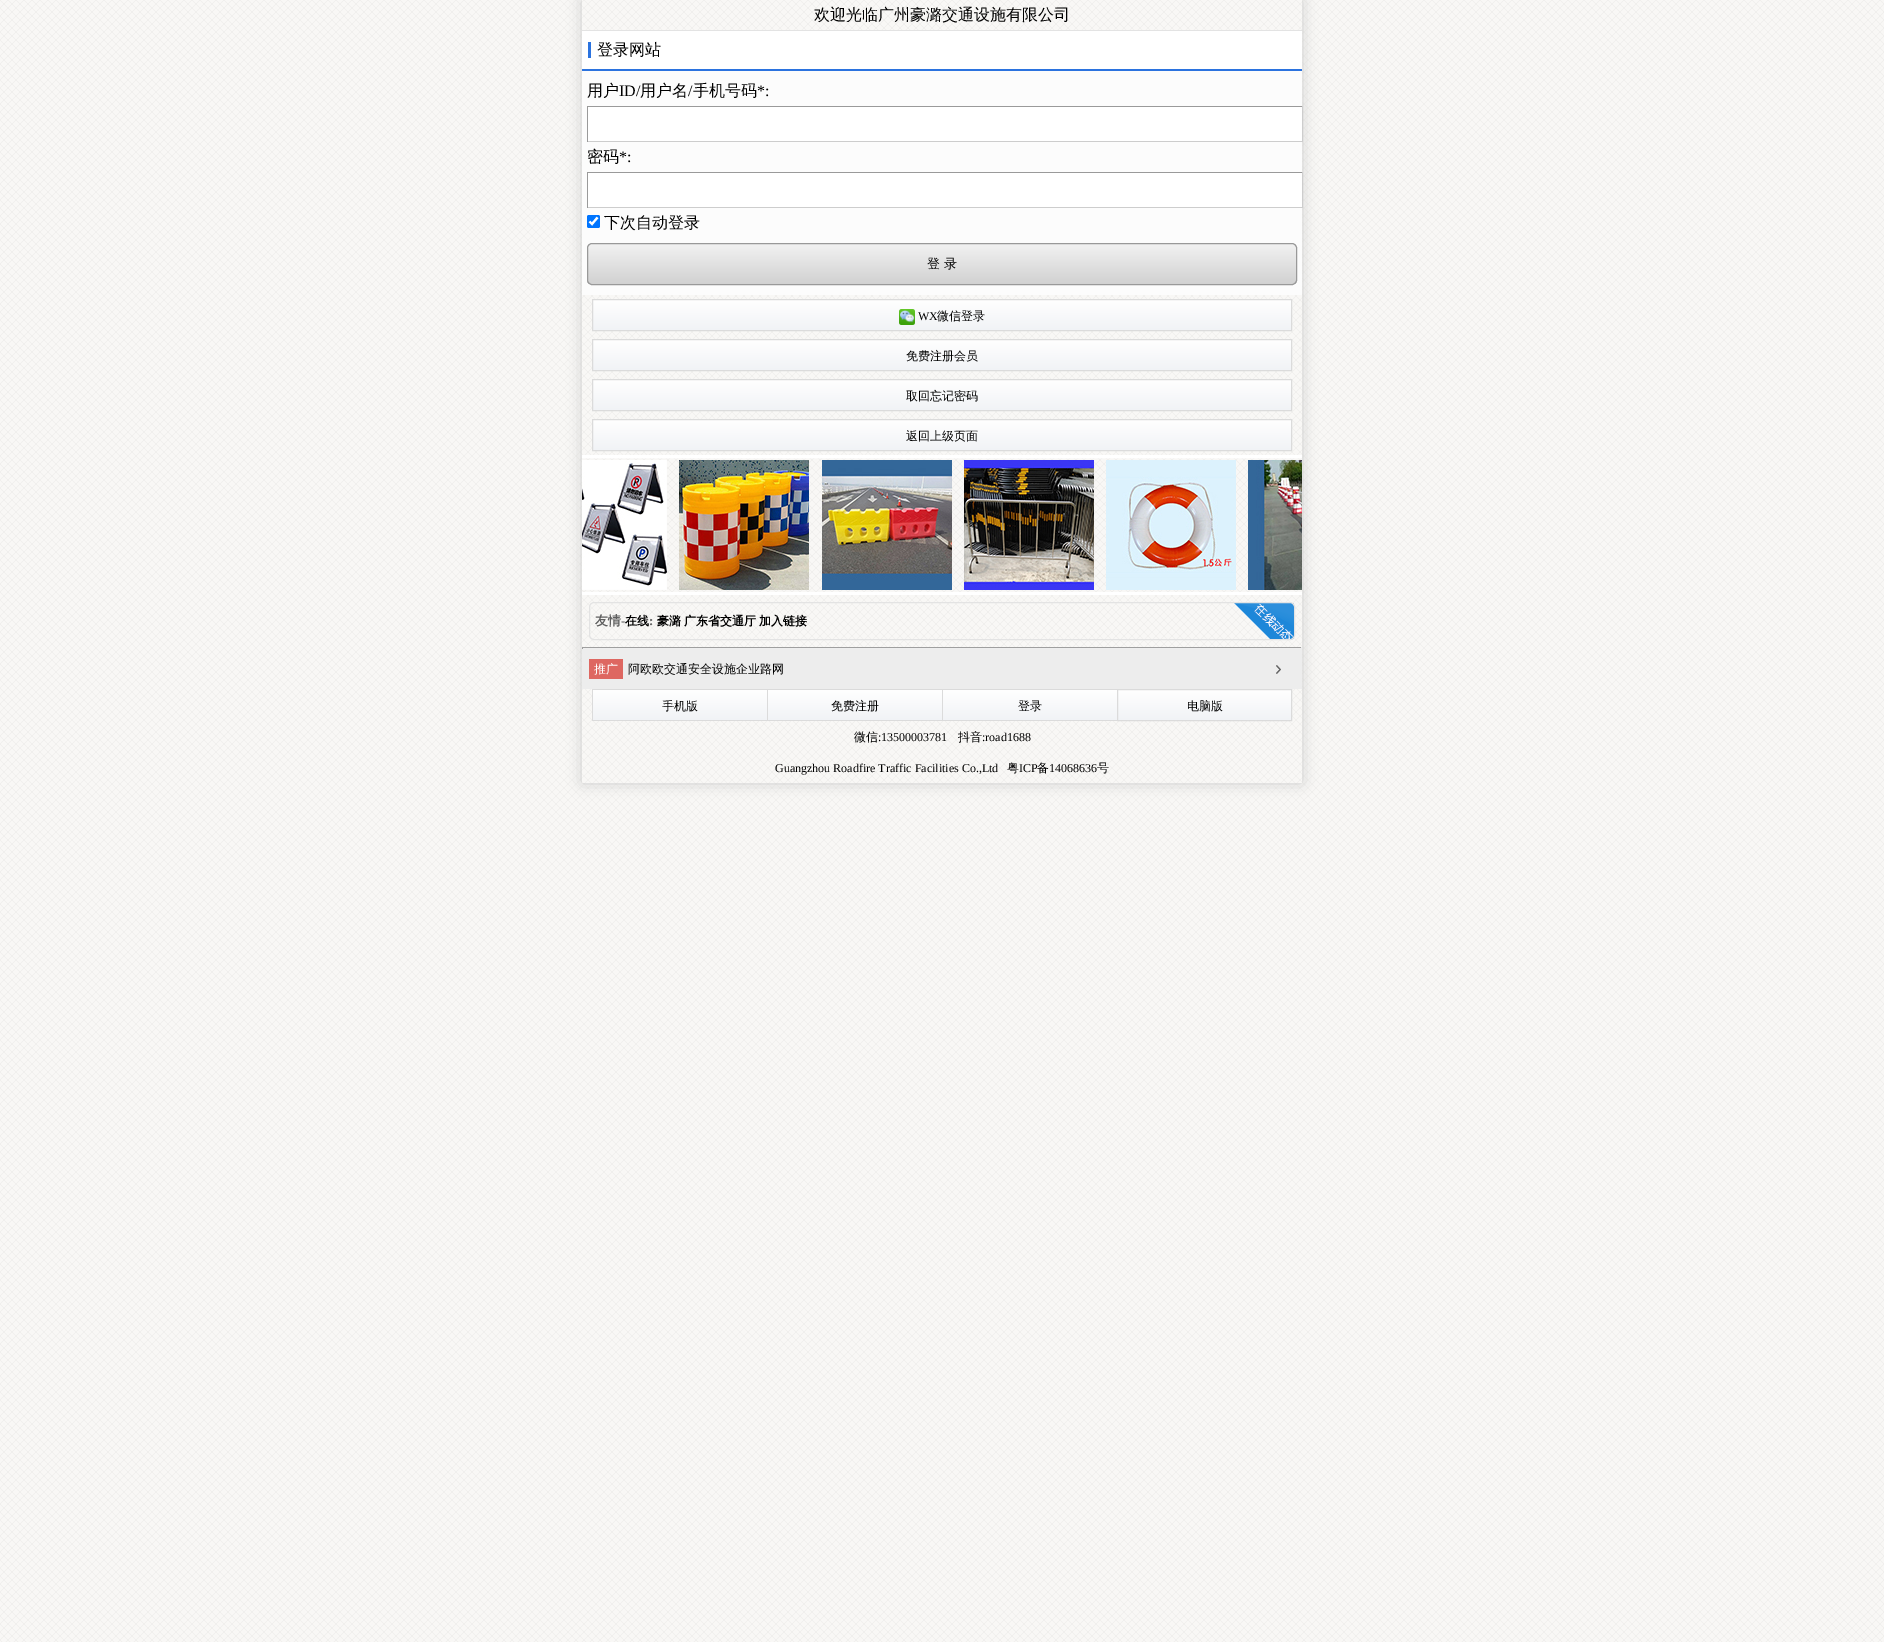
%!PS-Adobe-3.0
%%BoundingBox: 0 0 1884 1642
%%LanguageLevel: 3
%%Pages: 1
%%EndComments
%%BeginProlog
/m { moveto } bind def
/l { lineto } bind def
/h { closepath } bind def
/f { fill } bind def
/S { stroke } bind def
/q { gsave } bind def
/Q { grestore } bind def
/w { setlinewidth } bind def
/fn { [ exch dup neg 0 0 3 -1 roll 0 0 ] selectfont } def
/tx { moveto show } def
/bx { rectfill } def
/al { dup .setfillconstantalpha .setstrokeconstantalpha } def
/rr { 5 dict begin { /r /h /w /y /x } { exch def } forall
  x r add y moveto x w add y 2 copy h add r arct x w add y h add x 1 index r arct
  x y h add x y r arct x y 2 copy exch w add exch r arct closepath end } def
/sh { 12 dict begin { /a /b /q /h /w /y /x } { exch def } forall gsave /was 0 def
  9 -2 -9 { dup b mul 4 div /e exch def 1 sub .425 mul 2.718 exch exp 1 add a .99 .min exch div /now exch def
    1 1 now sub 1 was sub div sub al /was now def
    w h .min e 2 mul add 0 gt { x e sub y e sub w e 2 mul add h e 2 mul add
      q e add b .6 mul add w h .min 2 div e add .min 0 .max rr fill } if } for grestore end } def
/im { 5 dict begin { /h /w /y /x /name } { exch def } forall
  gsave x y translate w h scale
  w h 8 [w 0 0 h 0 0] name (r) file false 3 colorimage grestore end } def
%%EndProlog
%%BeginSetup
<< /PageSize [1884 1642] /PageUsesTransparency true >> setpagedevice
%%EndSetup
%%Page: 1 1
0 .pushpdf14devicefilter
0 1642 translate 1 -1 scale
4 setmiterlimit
1 setgray
0 0 1884 1642 bx
(image0.raw) 0 0 1884 1642 im
q
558 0 m 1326 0 l 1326 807 l 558 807 l h 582 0 m 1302 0 l 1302 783 l 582 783 l h eoclip newpath
0.8 setgray
582 0 720 783 0 7.5 1 sh
Q
/WenQuanYiZenHei-Medium 16 fn
0 setgray
(欢迎光临广州豪潞交通设施有限公司) 814 20 tx
1 setgray
582 31 720 38 bx
0.169 0.451 0.875 setrgbcolor
588 42 3 16 bx
0.89 setgray
582 30 720 1 bx
0.169 0.451 0.875 setrgbcolor
582 69 720 2 bx
0 setgray
(登录网站) 597 55 tx
0.988 setgray
582 71 720 224 bx
0 setgray
(用户) 587 96 tx
/LiberationSerif-Regular 16 fn
(ID/) 619 96 tx
/WenQuanYiZenHei-Medium 16 fn
(用户名) 640 96 tx
/LiberationSerif-Regular 16 fn
(/) 688 96 tx
/WenQuanYiZenHei-Medium 16 fn
(手机号码) 693 96 tx
/LiberationSerif-Regular 16 fn
(*:) 757 96 tx
1 setgray
588 107 714 34 bx
0.604 setgray
587 106 716 1 bx
0.804 setgray
1302 106 1 36 bx
587 141 716 1 bx
0.604 setgray
587 106 1 36 bx
/WenQuanYiZenHei-Medium 16 fn
0 setgray
(密码) 587 162 tx
/LiberationSerif-Regular 16 fn
(*:) 619 162 tx
1 setgray
588 173 714 34 bx
0.604 setgray
587 172 716 1 bx
0.804 setgray
1302 172 1 36 bx
587 207 716 1 bx
0.604 setgray
587 172 1 36 bx
0 0.459 1 setrgbcolor
587 215 13 13 2 rr f
1 setgray
2.1 w
589.5 221.5 m 592 224 l 597.5 217.5 l S
/WenQuanYiZenHei-Medium 16 fn
0 setgray
(下次自动登录) 604 228 tx
q
587 243 710 42 5 rr clip newpath
q 587 244 m 1297 244 l 1297 284 l 587 284 l h clip newpath
<< /ShadingType 2 /ColorSpace /DeviceRGB /Coords [588 244 588 284] /Extend [true true] /Function << /FunctionType 2 /Domain [0 1] /C0 [0.949 0.949 0.949] /C1 [0.82 0.82 0.82] /N 1 >> >> shfill Q
Q
0.6 setgray
1 w
587.5 243.5 709 41 4.5 rr S
/WenQuanYiZenHei-Medium 13 fn
0 setgray
(登 录) 927 268 tx
q 593 300 m 1291 300 l 1291 330 l 593 330 l h clip newpath
<< /ShadingType 2 /ColorSpace /DeviceRGB /Coords [942 300 942 330] /Extend [true true] /Function << /FunctionType 2 /Domain [0 1] /C0 [1 1 1] /C1 [0.945 0.953 0.965] /N 1 >> >> shfill Q
0.859 setgray
592.5 299.5 699 31 rectstroke
(image1.raw) 899 309 16 16 im
/LiberationSerif-Regular 12 fn
0 setgray
(WX) 918 320 tx
/WenQuanYiZenHei-Medium 12 fn
(微信登录) 937 320 tx
q 593 340 m 1291 340 l 1291 370 l 593 370 l h clip newpath
<< /ShadingType 2 /ColorSpace /DeviceRGB /Coords [942 340 942 370] /Extend [true true] /Function << /FunctionType 2 /Domain [0 1] /C0 [1 1 1] /C1 [0.945 0.953 0.965] /N 1 >> >> shfill Q
0.859 setgray
592.5 339.5 699 31 rectstroke
0 setgray
(免费注册会员) 906 360 tx
q 593 380 m 1291 380 l 1291 410 l 593 410 l h clip newpath
<< /ShadingType 2 /ColorSpace /DeviceRGB /Coords [942 380 942 410] /Extend [true true] /Function << /FunctionType 2 /Domain [0 1] /C0 [1 1 1] /C1 [0.945 0.953 0.965] /N 1 >> >> shfill Q
0.859 setgray
592.5 379.5 699 31 rectstroke
0 setgray
(取回忘记密码) 906 400 tx
q 593 420 m 1291 420 l 1291 450 l 593 450 l h clip newpath
<< /ShadingType 2 /ColorSpace /DeviceRGB /Coords [942 420 942 450] /Extend [true true] /Function << /FunctionType 2 /Domain [0 1] /C0 [1 1 1] /C1 [0.945 0.953 0.965] /N 1 >> >> shfill Q
0.859 setgray
592.5 419.5 699 31 rectstroke
0 setgray
(返回上级页面) 906 440 tx
q
582 455 720 140 rectclip
1 setgray
3 w
533.5 456.5 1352 137 rectstroke
Q
(image2.raw) 582 460 85 130 im
(image3.raw) 679 460 130 130 im
(image4.raw) 822 460 130 130 im
(image5.raw) 964 460 130 130 im
(image6.raw) 1106 460 130 130 im
(image7.raw) 1248 460 54 130 im
(image8.raw) 1234 603 60 37 im
0.89 setgray
589.5 602.5 705 37 4.5 rr S
/WenQuanYiZenHei-Bold 13 fn
0.373 setgray
(友情) 595 625 tx
/LiberationSerif-Bold 13 fn
(-) 621 625 tx
/WenQuanYiZenHei-Bold 12 fn
0 setgray
(在线) 625 625 tx
/LiberationSerif-Bold 13 fn
0.373 setgray
(:) 649 625 tx
/WenQuanYiZenHei-Bold 12 fn
0 setgray
(豪潞) 657 625 tx
(广东省交通厅) 684 625 tx
(加入链接) 759 625 tx
0.624 setgray
582 647 720 1 bx
0.933 setgray
1301 647 1 2 bx
582 648 720 1 bx
0.624 setgray
582 647 1 2 bx
0.929 setgray
582 649 720 40 bx
(image9.raw) 1276 665 5 9 im
0.871 0.404 0.38 setrgbcolor
589 659 34 20 bx
/WenQuanYiZenHei-Medium 12 fn
1 setgray
(推广) 594 673 tx
0 setgray
(阿欧欧交通安全设施企业路网) 628 673 tx
q 593 690 m 767 690 l 767 720 l 593 720 l h clip newpath
<< /ShadingType 2 /ColorSpace /DeviceRGB /Coords [680 690 680 720] /Extend [true true] /Function << /FunctionType 2 /Domain [0 1] /C0 [1 1 1] /C1 [0.945 0.953 0.965] /N 1 >> >> shfill Q
0.859 setgray
592 689 525 1 bx
592 720 525 1 bx
592 689 1 32 bx
0 setgray
(手机版) 662 710 tx
q 768 690 m 942 690 l 942 720 l 768 720 l h clip newpath
<< /ShadingType 2 /ColorSpace /DeviceRGB /Coords [855 690 855 720] /Extend [true true] /Function << /FunctionType 2 /Domain [0 1] /C0 [1 1 1] /C1 [0.945 0.953 0.965] /N 1 >> >> shfill Q
0.859 setgray
767 689 1 32 bx
0 setgray
(免费注册) 831 710 tx
q 943 690 m 1117 690 l 1117 720 l 943 720 l h clip newpath
<< /ShadingType 2 /ColorSpace /DeviceRGB /Coords [1030 690 1030 720] /Extend [true true] /Function << /FunctionType 2 /Domain [0 1] /C0 [1 1 1] /C1 [0.945 0.953 0.965] /N 1 >> >> shfill Q
0.859 setgray
942 689 1 32 bx
0 setgray
(登录) 1018 710 tx
q 1118 690 m 1291 690 l 1291 720 l 1118 720 l h clip newpath
<< /ShadingType 2 /ColorSpace /DeviceRGB /Coords [1205 690 1205 720] /Extend [true true] /Function << /FunctionType 2 /Domain [0 1] /C0 [1 1 1] /C1 [0.945 0.953 0.965] /N 1 >> >> shfill Q
0.859 setgray
1117.5 689.5 174 31 rectstroke
0 setgray
(电脑版) 1187 710 tx
(微信) 854 741 tx
/LiberationSerif-Regular 12 fn
(:13500003781) 878 741 tx
/WenQuanYiZenHei-Medium 12 fn
(抖音) 958 741 tx
/LiberationSerif-Regular 12 fn
(:road1688) 982 741 tx
(Guangzhou Roadfire Traffic Facilities Co.,Ltd) 775 772 tx
/WenQuanYiZenHei-Medium 12 fn
(粤) 1007 772 tx
/LiberationSerif-Regular 12 fn
(ICP) 1019 772 tx
/WenQuanYiZenHei-Medium 12 fn
(备) 1037 772 tx
/LiberationSerif-Regular 12 fn
(14068636) 1049 772 tx
/WenQuanYiZenHei-Medium 12 fn
(号) 1097 772 tx
.poppdf14devicefilter showpage
%%EOF
